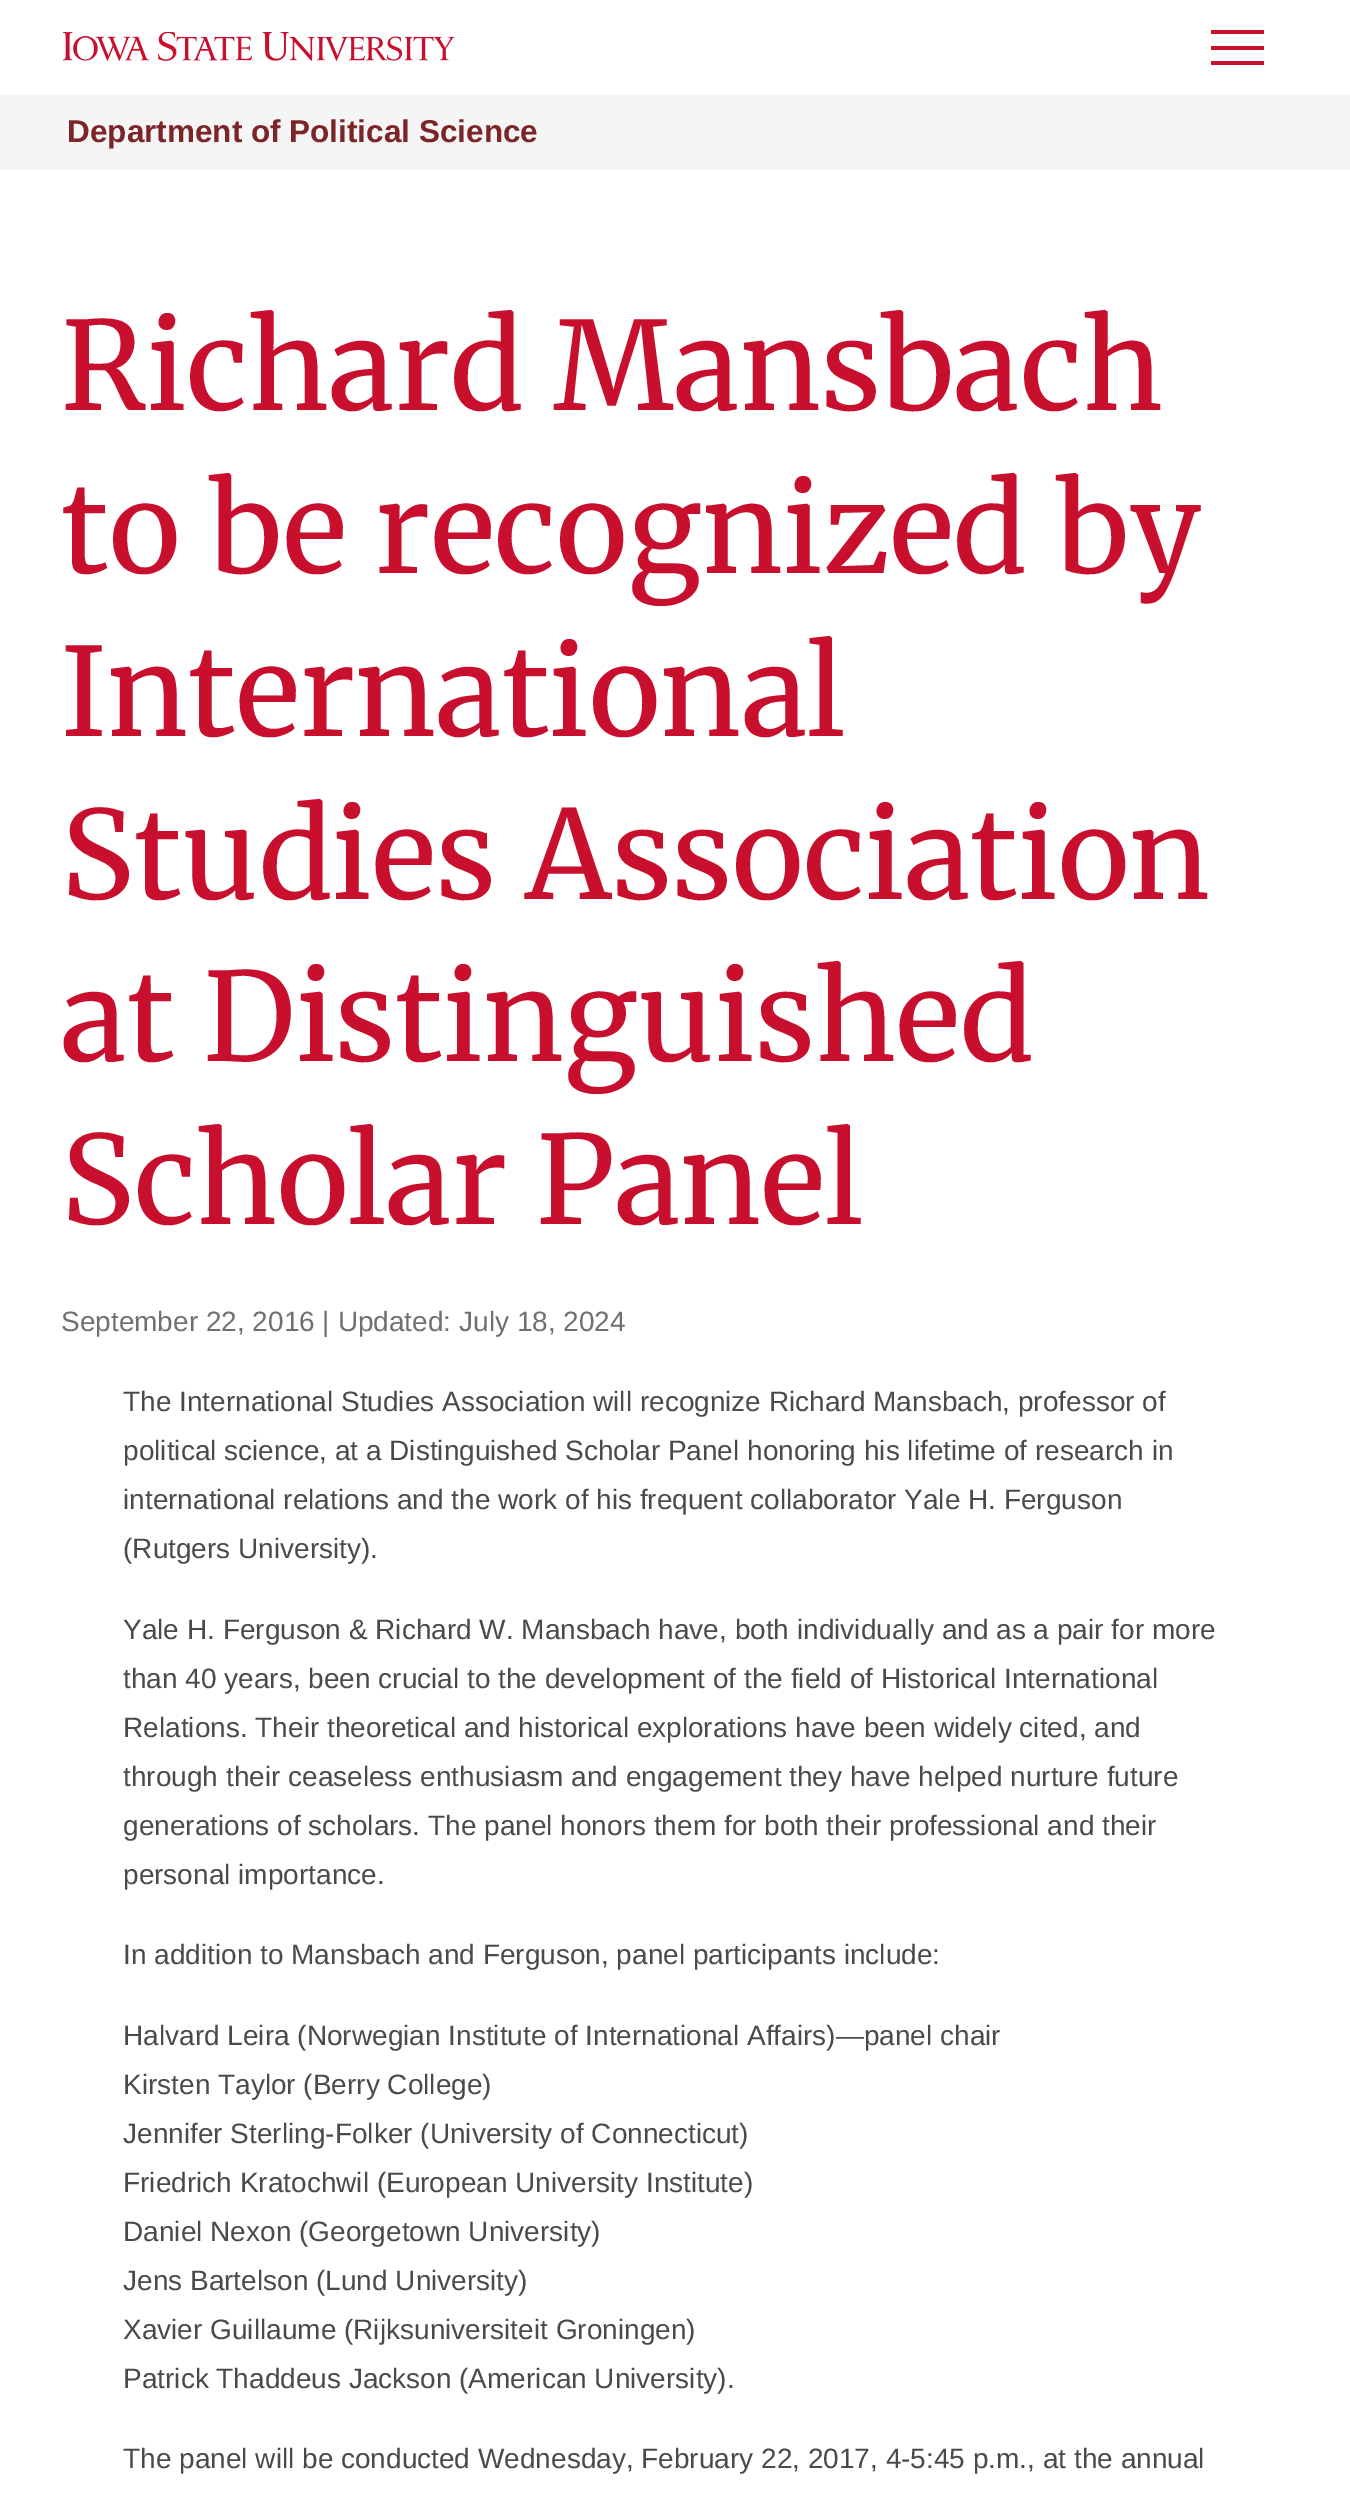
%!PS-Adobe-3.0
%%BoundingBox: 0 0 1350 2505
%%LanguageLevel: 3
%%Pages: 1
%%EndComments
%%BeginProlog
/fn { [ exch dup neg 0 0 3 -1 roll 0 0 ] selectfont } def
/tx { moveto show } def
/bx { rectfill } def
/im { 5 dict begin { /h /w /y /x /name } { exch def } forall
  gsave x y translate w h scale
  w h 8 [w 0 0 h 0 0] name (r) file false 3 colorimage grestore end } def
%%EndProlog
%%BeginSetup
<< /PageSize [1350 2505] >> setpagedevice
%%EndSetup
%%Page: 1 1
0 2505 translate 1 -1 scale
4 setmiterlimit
1 setgray
0 0 1350 2505 bx
0.784 0.063 0.18 setrgbcolor
1211 30 53 4 bx
1211 46 53 4 bx
1211 61 53 4 bx
(image0.raw) 63 32 392 29 im
0.961 setgray
0 95 1350 75 bx
/LiberationSans-Bold 31.5 fn
0.486 0.145 0.161 setrgbcolor
(Department of Political Science) 67 142 tx
/Merriweather-Regular 122.5 fn
0.784 0.063 0.18 setrgbcolor
(Richard Mansbach) 61 410 tx
(to be recognized by) 61 573 tx
(International) 61 736 tx
(Studies Association) 61 899 tx
(at Distinguished) 61 1061 tx
(Scholar Panel) 61 1224 tx
/LiberationSans-Regular 28 fn
0.439 setgray
(September 22, 2016 | Updated: July 18, 2024) 61 1331 tx
0.29 setgray
(The International Studies Association will recognize Richard Mansbach, professor of) 123 1411 tx
(political science, at a Distinguished Scholar Panel honoring his lifetime of research in) 123 1460 tx
(international relations and the work of his frequent collaborator Yale H. Ferguson) 123 1509 tx
(\(Rutgers University\).) 123 1558 tx
(Yale H. Ferguson & Richard W. Mansbach have, both individually and as a pair for more) 123 1639 tx
(than 40 years, been crucial to the development of the field of Historical International) 123 1688 tx
(Relations. Their theoretical and historical explorations have been widely cited, and) 123 1737 tx
(through their ceaseless enthusiasm and engagement they have helped nurture future) 123 1786 tx
(generations of scholars. The panel honors them for both their professional and their) 123 1835 tx
(personal importance.) 123 1884 tx
(In addition to Mansbach and Ferguson, panel participants include:) 123 1964 tx
(Halvard Leira \(Norwegian Institute of International Affairs\)—panel chair) 123 2045 tx
(Kirsten Taylor \(Berry College\)) 123 2094 tx
(Jennifer Sterling-Folker \(University of Connecticut\)) 123 2143 tx
(Friedrich Kratochwil \(European University Institute\)) 123 2192 tx
(Daniel Nexon \(Georgetown University\)) 123 2241 tx
(Jens Bartelson \(Lund University\)) 123 2290 tx
(Xavier Guillaume \(Rijksuniversiteit Groningen\)) 123 2339 tx
(Patrick Thaddeus Jackson \(American University\).) 123 2388 tx
(The panel will be conducted Wednesday, February 22, 2017, 4-5:45 p.m., at the annual) 123 2468 tx
showpage
%%EOF
